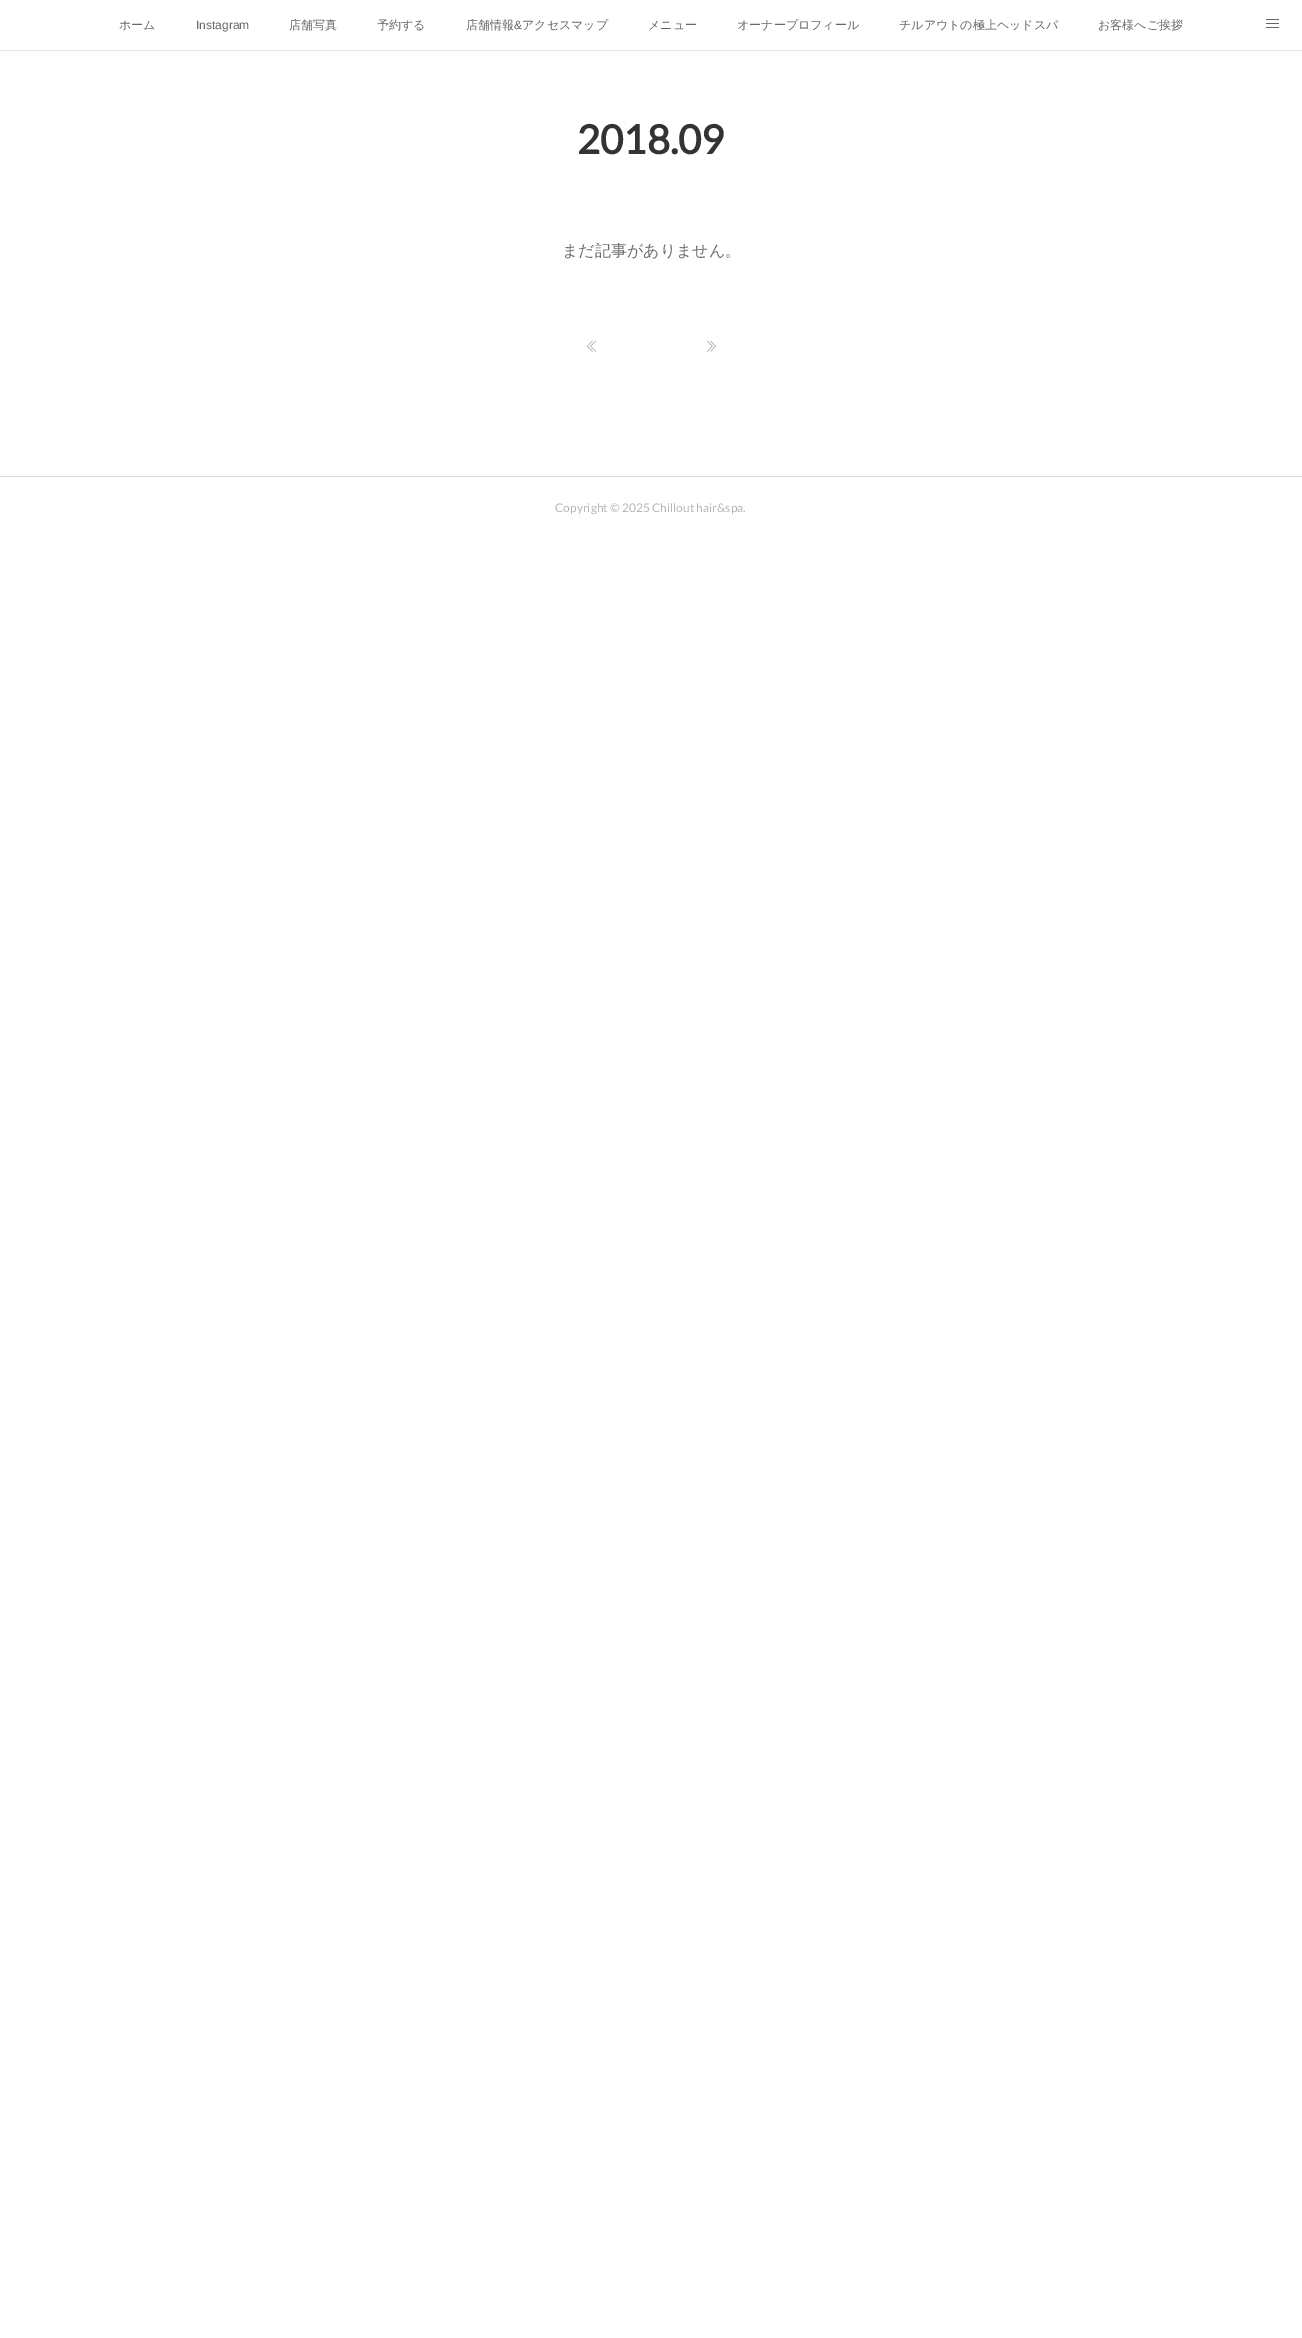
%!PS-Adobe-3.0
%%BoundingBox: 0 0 1302 2338
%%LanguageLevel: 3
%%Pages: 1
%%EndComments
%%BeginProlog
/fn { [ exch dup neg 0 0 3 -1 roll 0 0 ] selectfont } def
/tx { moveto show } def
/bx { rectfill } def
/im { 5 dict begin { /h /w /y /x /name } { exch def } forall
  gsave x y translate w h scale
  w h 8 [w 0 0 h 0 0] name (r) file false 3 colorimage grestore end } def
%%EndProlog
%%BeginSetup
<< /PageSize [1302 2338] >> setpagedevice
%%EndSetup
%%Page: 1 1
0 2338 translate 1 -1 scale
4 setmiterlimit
1 setgray
0 0 1302 2338 bx
0.902 setgray
0 50 1302 1 bx
/WenQuanYiZenHei-Medium 12 fn
0.4 setgray
(ホーム) 119 29 tx
/LiberationSans-Regular 12 fn
(Instagram) 196 29 tx
/WenQuanYiZenHei-Medium 12 fn
(店舗写真) 289 29 tx
(予約する) 377 29 tx
(店舗情報) 466 29 tx
/LiberationSans-Regular 12 fn
(&) 514 29 tx
/WenQuanYiZenHei-Medium 12 fn
(アクセスマップ) 522 29 tx
(メニュー) 648 29 tx
(オーナープロフィール) 737 29 tx
(チルアウトの極上ヘッドスパ) 899 29 tx
(お客様へご挨拶) 1098 29 tx
1266 19 13 1 bx
1266 23 13 1 bx
1266 27 13 1 bx
/Lato-Bold 40 fn
0.2 setgray
(2018.09) 577 154 tx
/WenQuanYiZenHei-Medium 16 fn
0.439 0.435 0.439 setrgbcolor
(まだ記事がありません。) 562 256 tx
(image0.raw) 587 340 9 12 im
(image1.raw) 707 340 9 12 im
0.843 0.851 0.843 setrgbcolor
0 476 1302 1 bx
/Lato-Regular 12 fn
0.722 0.718 0.722 setrgbcolor
(Copyright © 2025 Chillout hair&spa.) 555 512 tx
showpage
%%EOF
